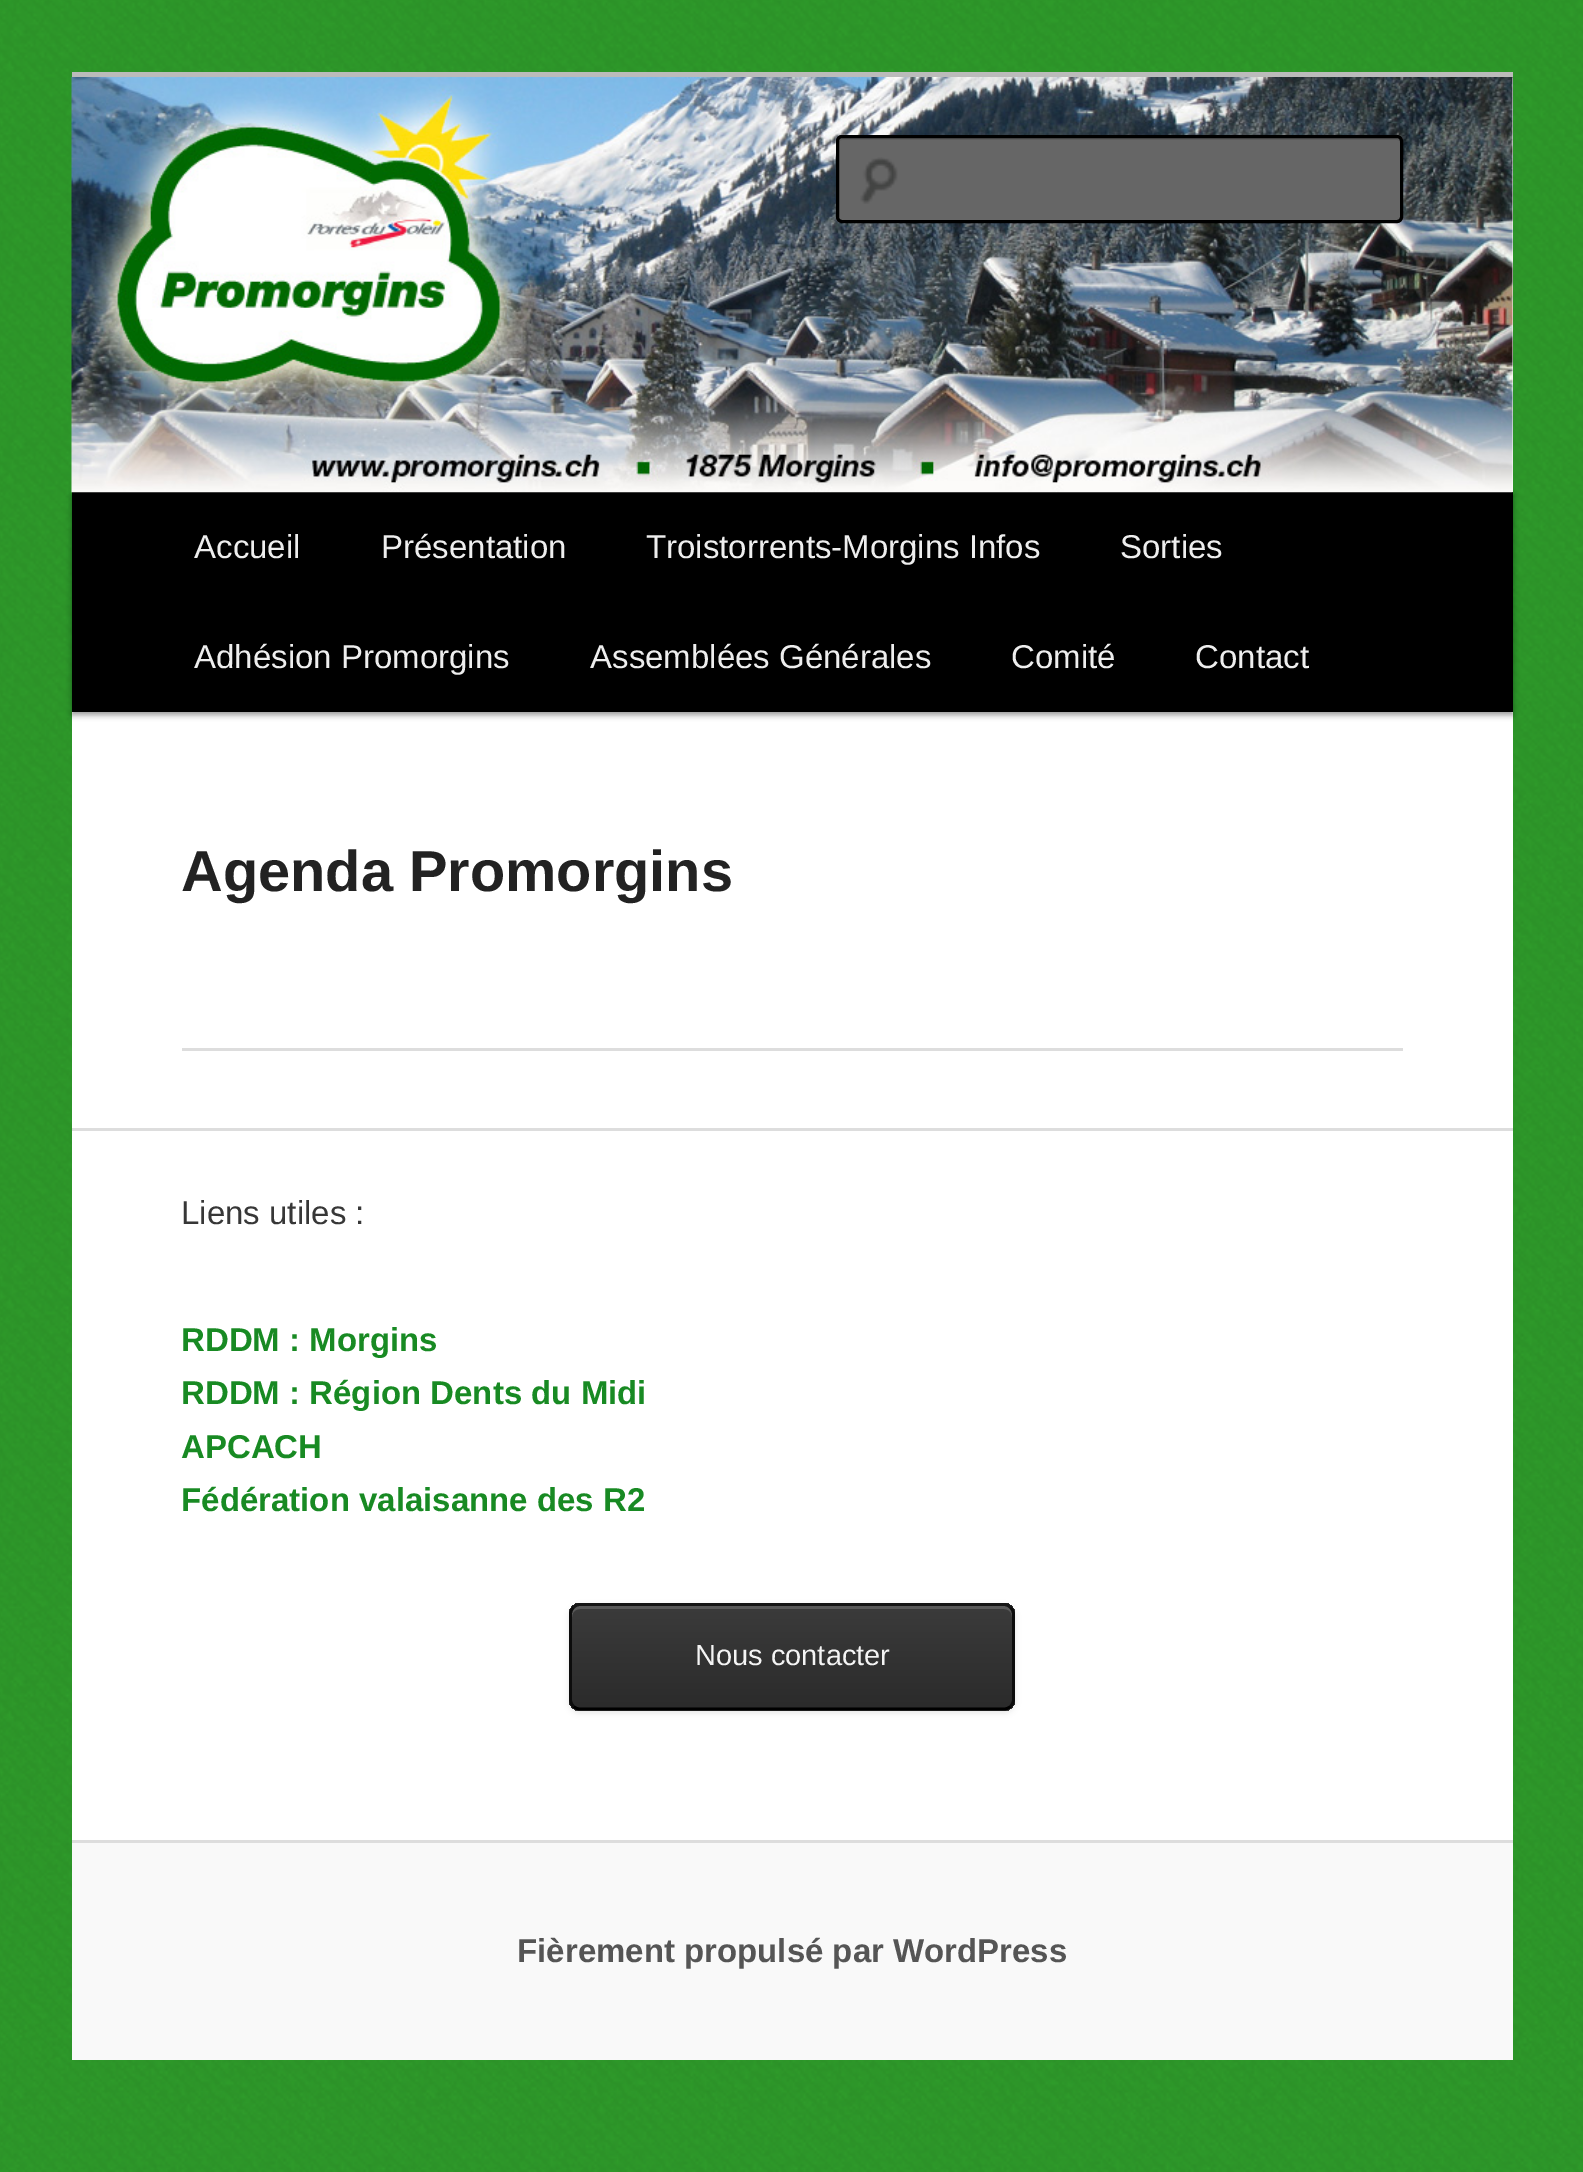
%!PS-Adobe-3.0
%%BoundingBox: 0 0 1583 2172
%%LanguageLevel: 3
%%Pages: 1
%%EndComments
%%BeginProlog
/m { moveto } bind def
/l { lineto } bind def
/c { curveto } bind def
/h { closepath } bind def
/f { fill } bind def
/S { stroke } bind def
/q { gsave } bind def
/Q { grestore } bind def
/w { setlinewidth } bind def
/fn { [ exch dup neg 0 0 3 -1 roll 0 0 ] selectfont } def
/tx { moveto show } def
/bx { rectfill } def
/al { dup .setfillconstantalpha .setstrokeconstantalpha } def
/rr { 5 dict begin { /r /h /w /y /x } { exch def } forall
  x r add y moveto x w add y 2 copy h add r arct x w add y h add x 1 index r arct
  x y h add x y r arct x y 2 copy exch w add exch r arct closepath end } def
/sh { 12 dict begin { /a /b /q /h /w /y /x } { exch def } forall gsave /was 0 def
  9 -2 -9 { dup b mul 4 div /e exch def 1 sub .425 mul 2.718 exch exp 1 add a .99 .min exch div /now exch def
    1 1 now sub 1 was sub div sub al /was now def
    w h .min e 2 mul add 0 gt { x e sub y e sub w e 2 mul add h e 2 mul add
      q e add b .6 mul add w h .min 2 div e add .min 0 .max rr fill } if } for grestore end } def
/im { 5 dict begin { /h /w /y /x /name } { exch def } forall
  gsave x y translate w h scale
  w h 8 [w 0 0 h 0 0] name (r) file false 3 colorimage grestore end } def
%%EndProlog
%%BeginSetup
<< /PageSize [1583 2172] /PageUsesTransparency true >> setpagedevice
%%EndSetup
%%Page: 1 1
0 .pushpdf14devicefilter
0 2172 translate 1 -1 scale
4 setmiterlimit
1 setgray
0 0 1583 2172 bx
(image0.raw) 0 0 1583 2172 im
72 78 1441 1762 bx
0.733 setgray
72 72 1441 6 bx
0 setgray
72 495 1441 220 0 3 0.4 sh
72 492 1441 220 bx
(image1.raw) 71 77 1442 416 im
0.4 setgray
836 135 567 88 6 rr f
(image2.raw) 860 157 38 47 im
0.361 setgray
842 140 m 1397 140 l 1399 140 1400 141 1400 143 c 1400 141 1400 138 1397 138 c 842 138 l 840 139 l 839 143 l 839 141 840 140 842 140 c h f
0 setgray
3 w
837.5 136.5 564 85 4.5 rr S
/LiberationSans-Regular 33 fn
0.933 setgray
(Accueil) 194 558 tx
(Présentation) 381 558 tx
(Troistorrents-Morgins Infos) 646 558 tx
(Sorties) 1120 558 tx
(Adhésion Promorgins) 194 668 tx
(Assemblées Générales) 590 668 tx
(Comité) 1011 668 tx
(Contact) 1195 668 tx
0.867 setgray
182 1048 1221 3 bx
/LiberationSans-Bold 57.75 fn
0.133 setgray
(Agenda Promorgins) 181 891 tx
0.867 setgray
72 1128 1441 3 bx
/LiberationSans-Regular 33 fn
0.216 setgray
(Liens utiles :) 181 1224 tx
/LiberationSans-Bold 33 fn
0.094 0.541 0.137 setrgbcolor
(RDDM : Morgins) 181 1351 tx
(RDDM : Région Dents du Midi) 181 1404 tx
(APCACH) 181 1458 tx
(Fédération valaisanne des R2) 181 1511 tx
0 setgray
569 1606 446 107 11 3 0.1 sh
q
569 1603 446 108 11 rr clip newpath
q 569 1603 m 1015 1603 l 1015 1606 l 569 1606 l h clip newpath
<< /ShadingType 2 /ColorSpace /DeviceRGB /Coords [572 1606 572 1504] /Extend [true true] /Function << /FunctionType 2 /Domain [0 1] /C0 [0.169 0.169 0.169] /C1 [0.231 0.231 0.231] /N 1 >> >> shfill Q
q 569 1606 m 1015 1606 l 1015 1708 l 569 1708 l h clip newpath
<< /ShadingType 2 /ColorSpace /DeviceRGB /Coords [572 1708 572 1606] /Extend [true true] /Function << /FunctionType 2 /Domain [0 1] /C0 [0.169 0.169 0.169] /C1 [0.231 0.231 0.231] /N 1 >> >> shfill Q
q 569 1708 m 1015 1708 l 1015 1711 l 569 1711 l h clip newpath
<< /ShadingType 2 /ColorSpace /DeviceRGB /Coords [572 1810 572 1708] /Extend [true true] /Function << /FunctionType 2 /Domain [0 1] /C0 [0.169 0.169 0.169] /C1 [0.231 0.231 0.231] /N 1 >> >> shfill Q
Q
0.353 setgray
580 1609 m 1004 1609 l 1008 1609 1012 1612 1012 1617 c 1012 1612 1010 1606 1004 1606 c 578 1606 l 573 1607 572 1612 572 1617 c 572 1612 576 1609 580 1609 c h f
0.086 setgray
2.8 w
573.5 1607.5 m 575 1605.5 577.5 1604.5 580 1604.5 c 1004 1604.5 l 1006.5 1604.5 1009 1605.5 1010.5 1607.5 c S
0.047 setgray
1010.5 1607.5 m 1012.5 1609 1013.5 1611.5 1013.5 1614 c 1013.5 1699.5 l 1013.5 1702 1012.5 1704.5 1010.5 1706.5 c S
0 setgray
1010.5 1706.5 m 1009 1708 1006.5 1709 1004 1709 c 580 1709 l 577.5 1709 575 1708 573.5 1706.5 c S
0.047 setgray
573.5 1706.5 m 571.5 1704.5 570.5 1702 570.5 1699.5 c 570.5 1614 l 570.5 1611.5 571.5 1609 573.5 1607.5 c S
/LiberationSans-Regular 29 fn
0.957 setgray
(Nous contacter) 695 1665 tx
0.976 setgray
72 1843 1441 217 bx
0.867 setgray
72 1840 1441 3 bx
/LiberationSans-Bold 33 fn
0.333 setgray
(Fièrement propulsé par WordPress) 517 1962 tx
.poppdf14devicefilter showpage
%%EOF
